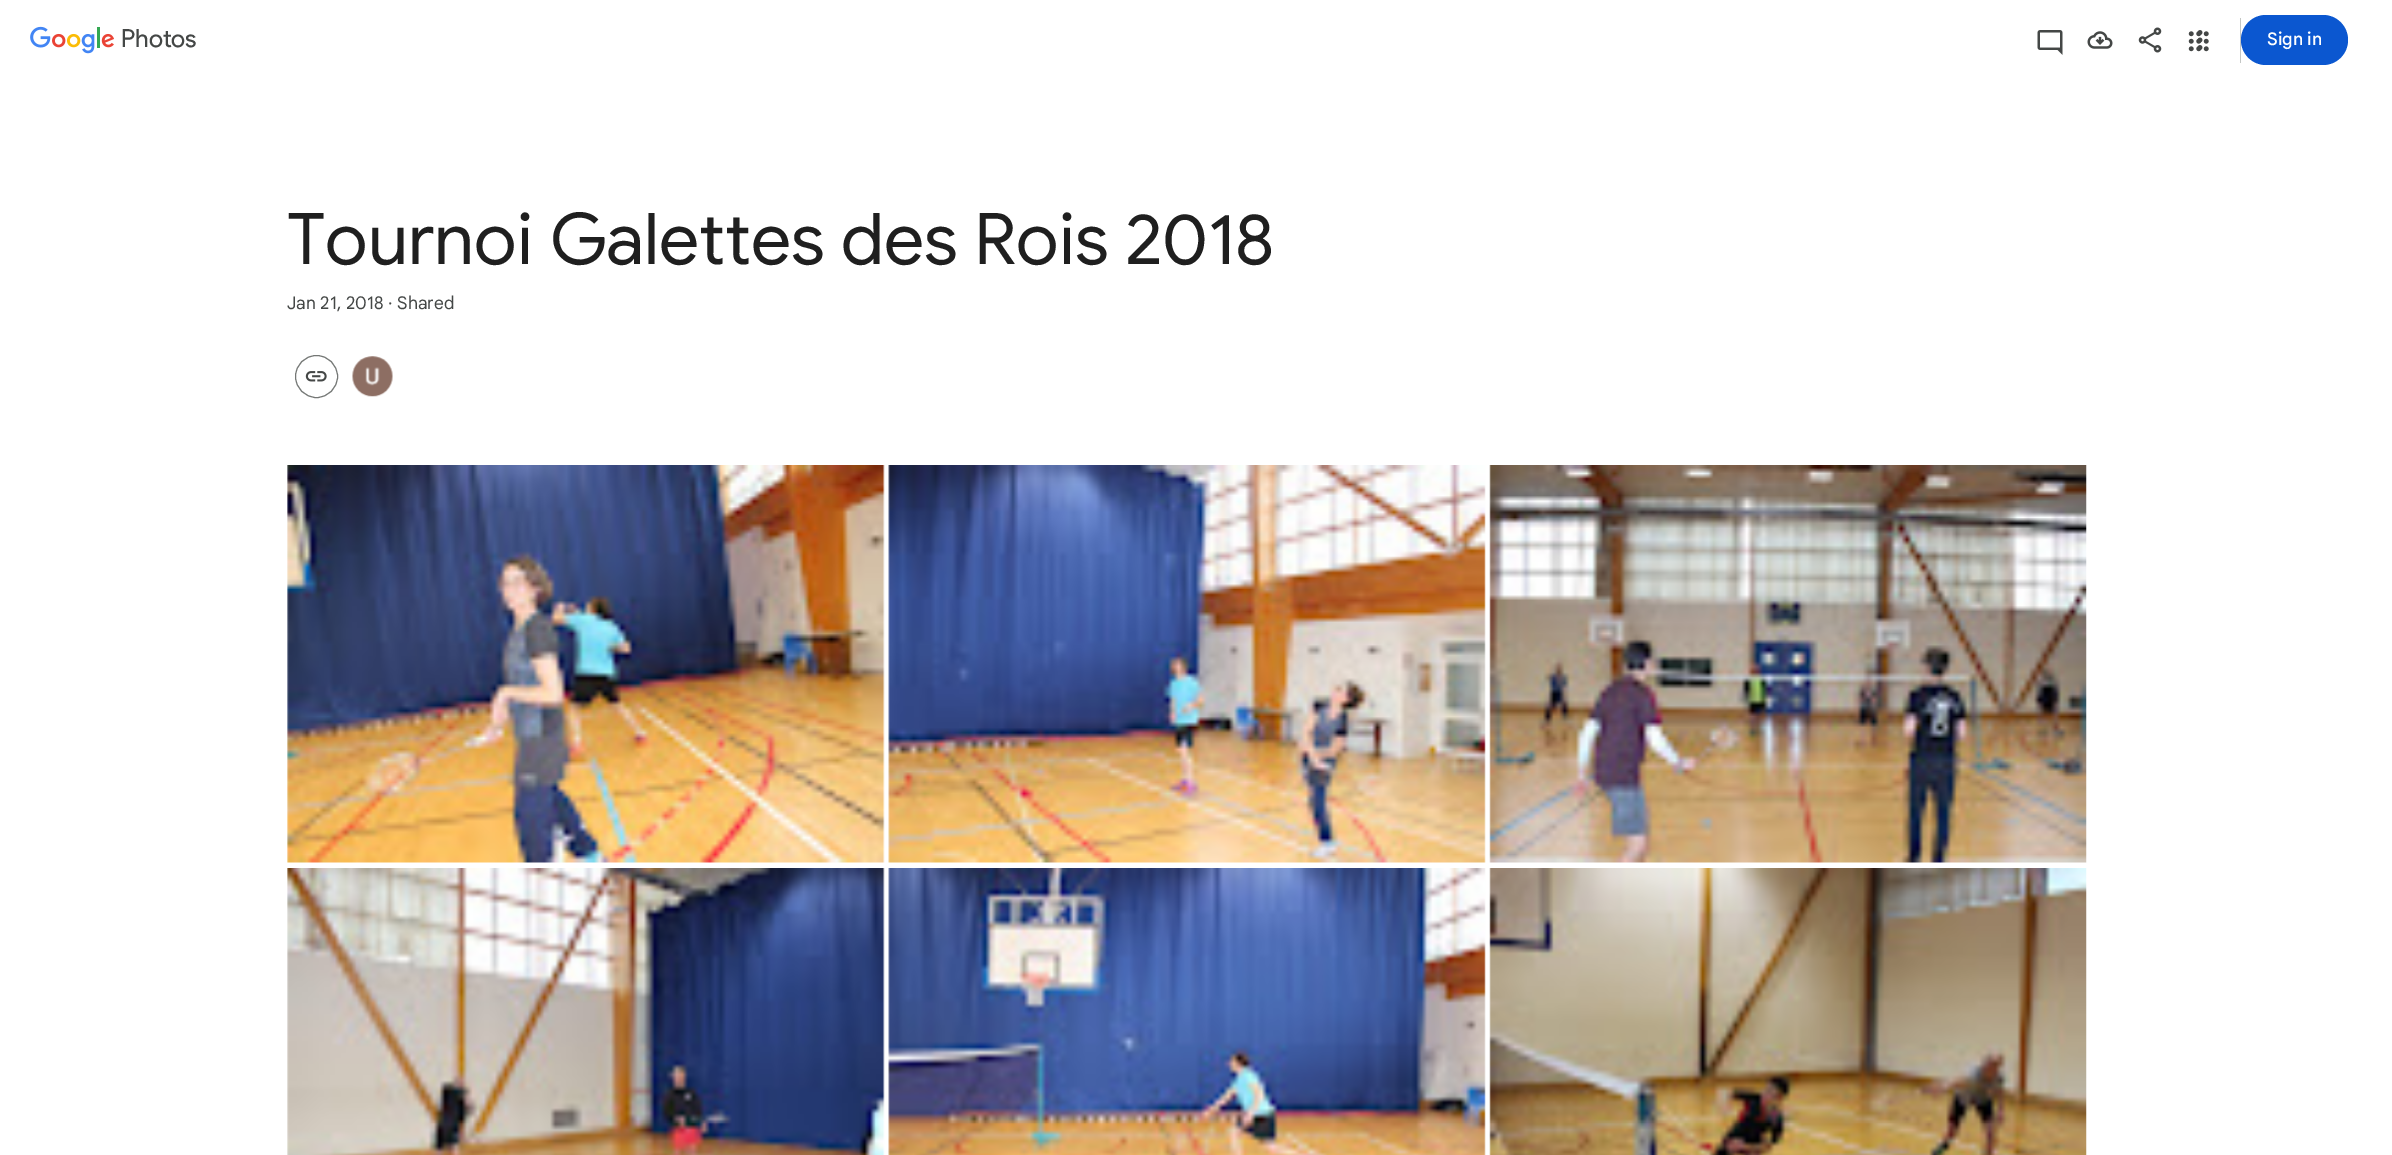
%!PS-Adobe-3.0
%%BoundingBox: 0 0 2392 1155
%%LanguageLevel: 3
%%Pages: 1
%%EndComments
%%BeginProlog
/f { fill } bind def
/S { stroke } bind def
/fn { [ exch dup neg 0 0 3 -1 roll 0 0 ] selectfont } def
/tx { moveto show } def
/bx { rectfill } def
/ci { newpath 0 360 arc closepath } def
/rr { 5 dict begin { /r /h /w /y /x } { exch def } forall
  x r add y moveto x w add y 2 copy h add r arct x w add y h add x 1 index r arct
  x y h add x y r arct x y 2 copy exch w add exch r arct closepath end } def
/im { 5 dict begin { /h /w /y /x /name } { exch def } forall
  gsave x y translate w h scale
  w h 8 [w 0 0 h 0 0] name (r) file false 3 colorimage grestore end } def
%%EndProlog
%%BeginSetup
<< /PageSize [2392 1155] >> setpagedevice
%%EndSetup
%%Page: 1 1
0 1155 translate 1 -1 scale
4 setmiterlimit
1 setgray
0 0 2392 1155 bx
(image0.raw) 30 26 84 28 im
/ProductSans-Regular 25 fn
0.267 0.278 0.275 setrgbcolor
(Photos) 121 47 tx
(image1.raw) 2037 30 26 25 im
(image2.raw) 2087 31 26 18 im
(image3.raw) 2138 27 24 26 im
(image4.raw) 2197 30 6 20 im
0.769 0.78 0.773 setrgbcolor
2240 18 1 45 bx
/GoogleSans-Regular 71.25 fn
0.122 setgray
(Tournoi Galettes des Rois 2018) 287 264 tx
/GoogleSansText-Regular 17.5 fn
0.267 0.278 0.275 setrgbcolor
(Jan 21, 2018 · Shared) 287 309 tx
0.455 0.467 0.459 setrgbcolor
316.5 376.5 21 ci S
(image5.raw) 305 371 22 11 im
(image6.raw) 352 356 41 41 im
(image7.raw) 287 465 598 398 im
(image8.raw) 888 465 598 398 im
(image9.raw) 1489 465 598 398 im
(image10.raw) 287 868 598 287 im
(image11.raw) 888 868 598 287 im
(image12.raw) 1489 868 598 287 im
(image13.raw) 2188 31 21 21 im
0.043 0.341 0.816 setrgbcolor
2241 15 107 50 25 rr f
/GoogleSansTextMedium-Medium 17.5 fn
1 setgray
(Sign in) 2267 45 tx
showpage
%%EOF
